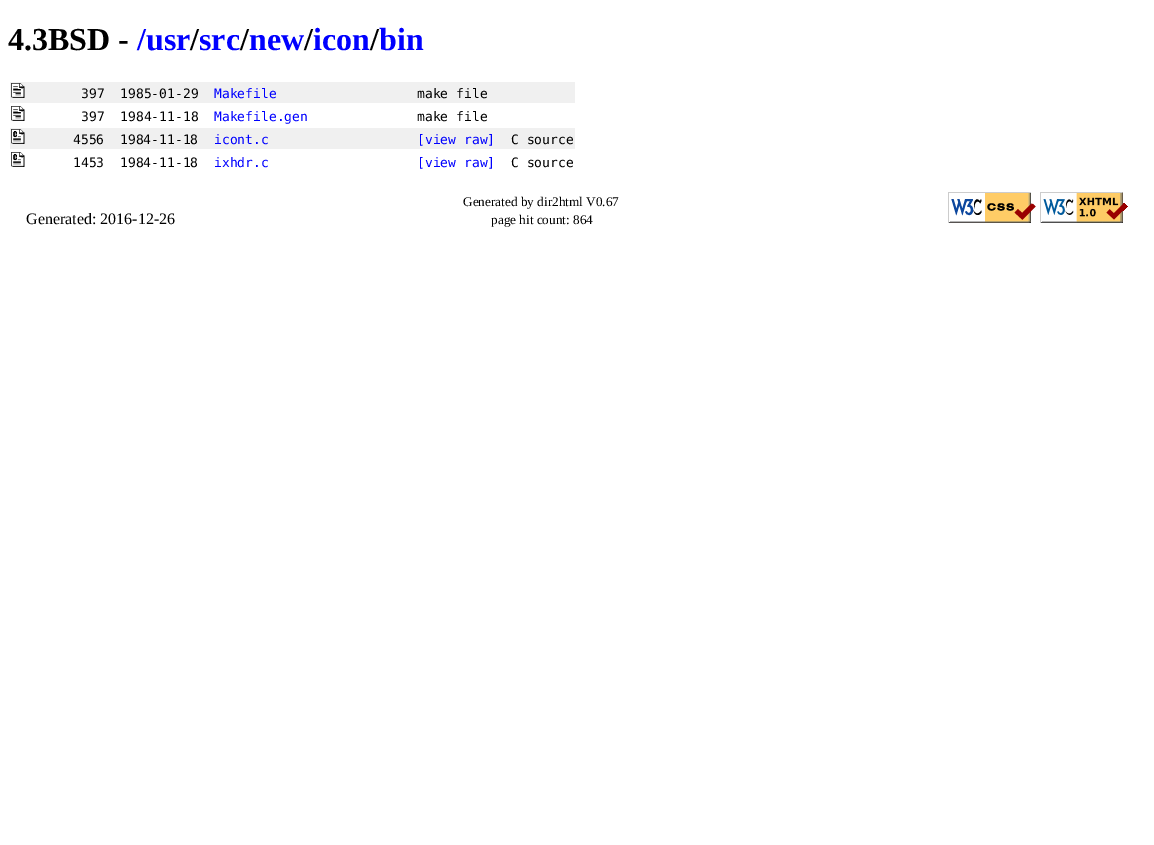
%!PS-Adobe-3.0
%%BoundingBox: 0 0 1154 845
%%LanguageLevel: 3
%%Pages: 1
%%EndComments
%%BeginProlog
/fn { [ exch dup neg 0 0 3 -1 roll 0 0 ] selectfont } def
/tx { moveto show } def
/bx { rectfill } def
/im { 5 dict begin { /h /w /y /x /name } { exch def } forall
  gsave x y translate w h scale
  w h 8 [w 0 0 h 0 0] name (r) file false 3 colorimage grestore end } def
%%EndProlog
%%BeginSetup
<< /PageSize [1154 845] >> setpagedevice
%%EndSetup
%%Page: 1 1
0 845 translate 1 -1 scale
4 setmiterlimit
1 setgray
0 0 1154 845 bx
/LiberationSerif-Bold 32 fn
0 setgray
(4.3BSD -) 8 50 tx
0 0 1 setrgbcolor
(/usr) 137 50 tx
0 setgray
(/) 190 50 tx
0 0 1 setrgbcolor
(src) 199 50 tx
0 setgray
(/) 240 50 tx
0 0 1 setrgbcolor
(new) 249 50 tx
0 setgray
(/) 304 50 tx
0 0 1 setrgbcolor
(icon) 313 50 tx
0 setgray
(/) 370 50 tx
0 0 1 setrgbcolor
(bin) 379 50 tx
0.941 setgray
10 82 565 21 bx
(image0.raw) 11 83 14 15 im
/DejaVuSansMono-Regular 13 fn
0 setgray
(397  1985-01-29) 81 98 tx
0 0 1 setrgbcolor
(Makefile) 214 98 tx
0 setgray
(make file) 417 98 tx
(image1.raw) 11 106 14 15 im
(397  1984-11-18) 81 121 tx
0 0 1 setrgbcolor
(Makefile.gen) 214 121 tx
0 setgray
(make file) 417 121 tx
0.941 setgray
10 128 565 21 bx
(image2.raw) 11 129 14 15 im
0 setgray
(4556  1984-11-18) 73 144 tx
0 0 1 setrgbcolor
(icont.c) 214 144 tx
([view raw]) 417 144 tx
0 setgray
(C source) 511 144 tx
(image3.raw) 11 152 14 15 im
(1453  1984-11-18) 73 167 tx
0 0 1 setrgbcolor
(ixhdr.c) 214 167 tx
([view raw]) 417 167 tx
0 setgray
(C source) 511 167 tx
/LiberationSerif-Regular 16 fn
(Generated: 2016-12-26) 26 224 tx
/LiberationSerif-Regular 13.25 fn
(Generated by dir2html V0.67) 463 206 tx
(page hit count: 864) 491 224 tx
(image4.raw) 948 192 88 31 im
(image5.raw) 1040 192 88 31 im
showpage
%%EOF
